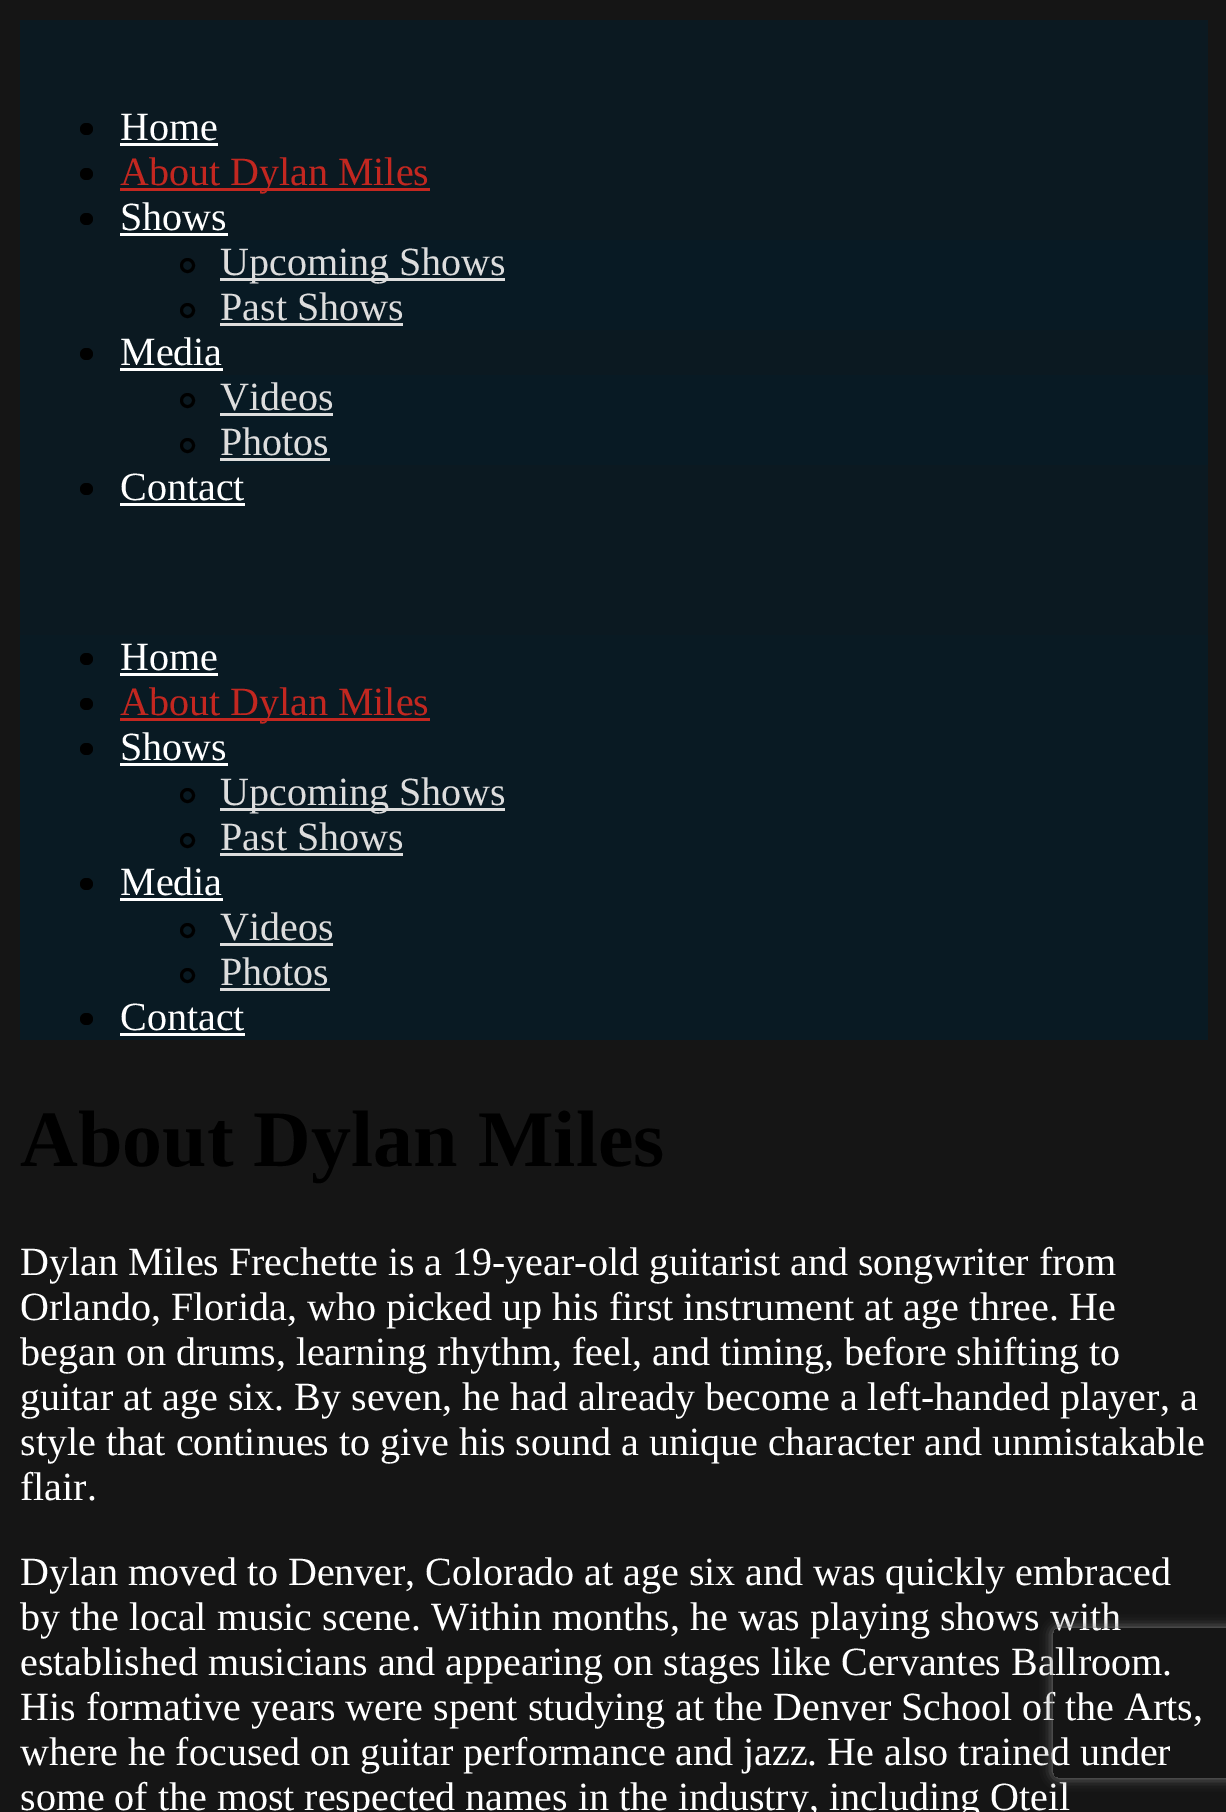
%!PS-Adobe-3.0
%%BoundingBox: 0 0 1226 1812
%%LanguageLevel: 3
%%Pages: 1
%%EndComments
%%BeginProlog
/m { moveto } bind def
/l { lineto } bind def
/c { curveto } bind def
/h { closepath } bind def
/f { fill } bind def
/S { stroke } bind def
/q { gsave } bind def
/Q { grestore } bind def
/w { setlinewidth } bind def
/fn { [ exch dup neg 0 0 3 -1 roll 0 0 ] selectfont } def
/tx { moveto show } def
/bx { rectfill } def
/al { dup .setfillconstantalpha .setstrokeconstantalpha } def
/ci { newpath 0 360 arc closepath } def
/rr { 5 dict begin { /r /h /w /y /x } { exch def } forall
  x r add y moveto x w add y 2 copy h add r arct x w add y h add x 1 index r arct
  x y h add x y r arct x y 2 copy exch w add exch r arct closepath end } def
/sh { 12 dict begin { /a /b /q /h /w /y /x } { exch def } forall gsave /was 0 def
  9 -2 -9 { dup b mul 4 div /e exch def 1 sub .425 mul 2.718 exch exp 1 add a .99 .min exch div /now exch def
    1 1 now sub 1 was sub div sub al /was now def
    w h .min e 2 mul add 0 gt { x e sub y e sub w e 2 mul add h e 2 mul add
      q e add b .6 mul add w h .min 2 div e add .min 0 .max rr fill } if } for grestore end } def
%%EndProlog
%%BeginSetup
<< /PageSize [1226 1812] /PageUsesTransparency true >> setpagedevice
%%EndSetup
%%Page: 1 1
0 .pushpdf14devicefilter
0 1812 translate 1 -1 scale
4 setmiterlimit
0.082 setgray
0 0 1226 1812 bx
0.043 0.098 0.129 setrgbcolor
20 20 1188 615 bx
0 setgray
80 123 13 12 6 rr f
/LiberationSerif-Regular 40 fn
1 setgray
(Home) 120 140 tx
120 143 98 3 bx
0 setgray
80 168 13 12 6 rr f
0.765 0.153 0.125 setrgbcolor
120 188 310 3 bx
(About Dylan Miles) 120 185 tx
0 setgray
80 213 13 12 6 rr f
1 setgray
(Shows) 120 230 tx
120 233 108 3 bx
0.031 0.102 0.141 setrgbcolor
220 240 988 90 bx
0 setgray
3 w
187.5 265.5 6 ci S
0.867 setgray
220 278 285 3 bx
(Upcoming Shows) 220 275 tx
0 setgray
187.5 310.5 6 ci S
0.867 setgray
(Past Shows) 220 320 tx
220 323 183 3 bx
0 setgray
80 348 13 12 6 rr f
1 setgray
(Media) 120 365 tx
120 368 103 3 bx
0.031 0.102 0.141 setrgbcolor
220 375 988 90 bx
0 setgray
187.5 400.5 6 ci S
0.867 setgray
(Videos) 220 410 tx
220 413 113 3 bx
0 setgray
187.5 445.5 6 ci S
0.867 setgray
(Photos) 220 455 tx
220 458 110 3 bx
0 setgray
80 483 13 12 6 rr f
1 setgray
(Contact) 120 500 tx
120 503 125 3 bx
0.035 0.102 0.137 setrgbcolor
20 635 1188 405 bx
0 setgray
80 653 13 12 6 rr f
1 setgray
(Home) 120 670 tx
120 673 98 3 bx
0 setgray
80 698 13 12 6 rr f
0.765 0.153 0.125 setrgbcolor
120 718 310 3 bx
(About Dylan Miles) 120 715 tx
0 setgray
80 743 13 12 6 rr f
1 setgray
(Shows) 120 760 tx
120 763 108 3 bx
0 setgray
187.5 795.5 6 ci S
0.867 setgray
220 808 285 3 bx
(Upcoming Shows) 220 805 tx
0 setgray
187.5 840.5 6 ci S
0.867 setgray
(Past Shows) 220 850 tx
220 853 183 3 bx
0 setgray
80 878 13 12 6 rr f
1 setgray
(Media) 120 895 tx
120 898 103 3 bx
0 setgray
187.5 930.5 6 ci S
0.867 setgray
(Videos) 220 940 tx
220 943 113 3 bx
0 setgray
187.5 975.5 6 ci S
0.867 setgray
(Photos) 220 985 tx
220 988 110 3 bx
0 setgray
80 1013 13 12 6 rr f
1 setgray
(Contact) 120 1030 tx
120 1033 125 3 bx
/LiberationSerif-Bold 80 fn
0 setgray
(About Dylan Miles) 20 1166 tx
/LiberationSerif-Regular 40 fn
1 setgray
(Dylan Miles Frechette is a 19-year-old guitarist and songwriter from) 20 1275 tx
(Orlando, Florida, who picked up his first instrument at age three. He) 20 1320 tx
(began on drums, learning rhythm, feel, and timing, before shifting to) 20 1365 tx
(guitar at age six. By seven, he had already become a left-handed player, a) 20 1410 tx
(style that continues to give his sound a unique character and unmistakable) 20 1455 tx
(flair.) 20 1500 tx
(Dylan moved to Denver, Colorado at age six and was quickly embraced) 20 1585 tx
(by the local music scene. Within months, he was playing shows with) 20 1630 tx
(established musicians and appearing on stages like Cervantes Ballroom.) 20 1675 tx
(His formative years were spent studying at the Denver School of the Arts,) 20 1720 tx
(where he focused on guitar performance and jazz. He also trained under) 20 1765 tx
(some of the most respected names in the industry, including Oteil) 20 1810 tx
q
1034 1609 m 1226 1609 l 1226 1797 l 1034 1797 l h 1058 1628 m 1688 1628 l 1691 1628 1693 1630 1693 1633 c 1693 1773 l 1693 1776 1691 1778 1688 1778 c 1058 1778 l 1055 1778 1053 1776 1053 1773 c 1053 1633 l 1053 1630 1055 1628 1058 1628 c h eoclip newpath
0.502 setgray
1053 1628 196 150 5 6 1 sh
Q
.poppdf14devicefilter showpage
%%EOF
